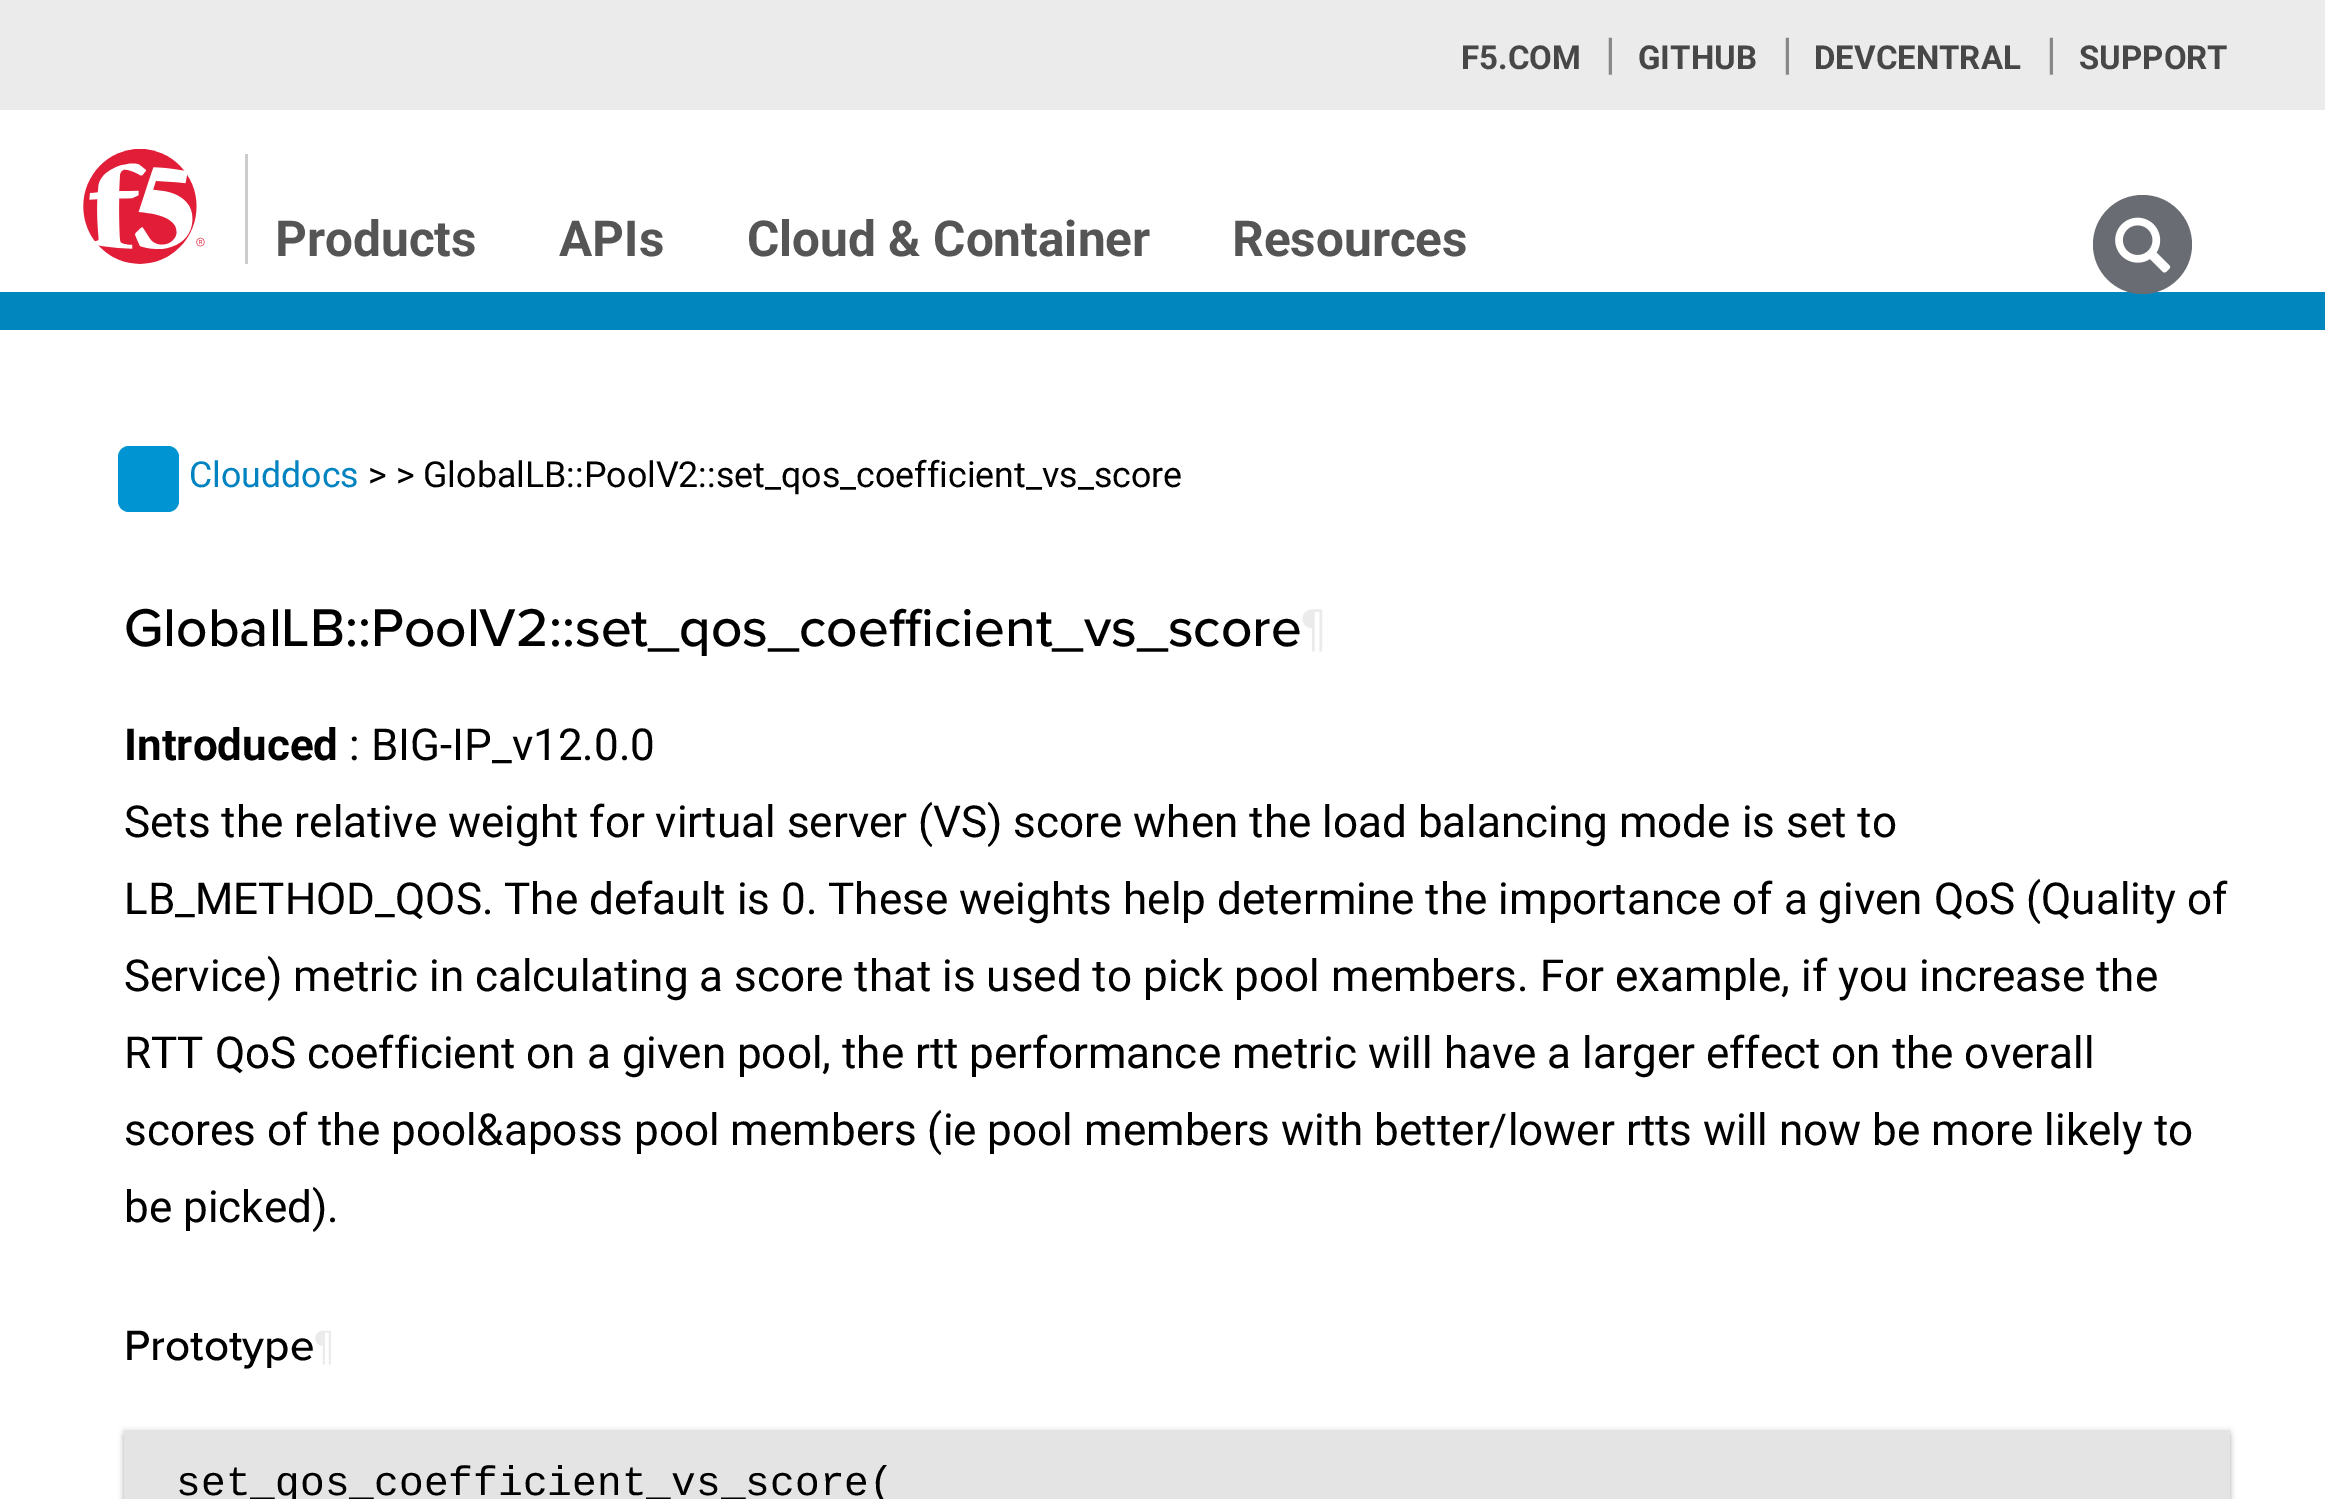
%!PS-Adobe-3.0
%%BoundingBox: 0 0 2325 1499
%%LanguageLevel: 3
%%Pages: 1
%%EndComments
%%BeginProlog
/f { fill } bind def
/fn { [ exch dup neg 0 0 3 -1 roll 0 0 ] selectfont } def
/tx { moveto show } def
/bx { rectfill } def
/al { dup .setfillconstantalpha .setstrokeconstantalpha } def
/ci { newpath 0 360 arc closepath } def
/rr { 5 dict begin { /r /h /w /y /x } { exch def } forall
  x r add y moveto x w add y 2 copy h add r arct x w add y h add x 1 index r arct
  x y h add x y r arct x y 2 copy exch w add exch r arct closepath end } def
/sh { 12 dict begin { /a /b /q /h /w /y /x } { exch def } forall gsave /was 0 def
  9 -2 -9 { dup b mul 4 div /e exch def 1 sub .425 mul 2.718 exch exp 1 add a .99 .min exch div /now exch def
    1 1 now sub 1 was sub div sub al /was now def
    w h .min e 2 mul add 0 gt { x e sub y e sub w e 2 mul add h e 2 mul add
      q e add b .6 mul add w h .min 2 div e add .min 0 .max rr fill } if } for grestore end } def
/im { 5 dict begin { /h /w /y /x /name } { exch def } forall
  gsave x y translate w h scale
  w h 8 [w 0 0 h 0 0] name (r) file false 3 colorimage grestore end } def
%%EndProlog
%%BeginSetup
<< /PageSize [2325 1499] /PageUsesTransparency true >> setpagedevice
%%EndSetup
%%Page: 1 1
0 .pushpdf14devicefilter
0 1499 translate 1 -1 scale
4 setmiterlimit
1 setgray
0 0 2325 1499 bx
0.922 setgray
0 0 2325 110 bx
/Roboto-Bold 33 fn
0.278 setgray
(F5.COM) 1461 69 tx
/Roboto-Regular 44 fn
0.533 setgray
(|) 1605 69 tx
/Roboto-Bold 33 fn
0.278 setgray
(GITHUB) 1638 69 tx
/Roboto-Regular 44 fn
0.533 setgray
(|) 1782 69 tx
/Roboto-Bold 33 fn
0.278 setgray
(DEVCENTRAL) 1814 69 tx
/Roboto-Regular 44 fn
0.533 setgray
(|) 2046 69 tx
/Roboto-Bold 33 fn
0.278 setgray
(SUPPORT) 2079 69 tx
0.004 0.525 0.745 setrgbcolor
0 292 2325 38 bx
(image0.raw) 83 149 122 115 im
0.8 setgray
245 154 3 110 bx
/Roboto-Bold 49.5 fn
0.333 setgray
(Products) 275 256 tx
(APIs) 559 256 tx
(Cloud & Container) 747 256 tx
(Resources) 1232 256 tx
0.416 0.424 0.451 setrgbcolor
2142.5 244.5 49.5 ci f
(image1.raw) 2115 217 56 56 im
0.004 0.58 0.824 setrgbcolor
118 446 61 66 11 rr f
/Roboto-Regular 35.75 fn
0 0.514 0.753 setrgbcolor
(Clouddocs) 189 487 tx
0 setgray
(> > GlobalLB::PoolV2::set_qos_coefficient_vs_score) 368 487 tx
/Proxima-Regular 55 fn
(GlobalLB::PoolV2::set_qos_coefficient_vs_score) 124 646 tx
0.922 setgray
(¶) 1301 646 tx
/Roboto-Bold 44 fn
0 setgray
(Introduced) 124 760 tx
/Roboto-Regular 44 fn
(: BIG-IP_v12.0.0) 349 760 tx
(Sets the relative weight for virtual server \(VS\) score when the load balancing mode is set to) 124 837 tx
(LB_METHOD_QOS. The default is 0. These weights help determine the importance of a given QoS \(Quality of) 124 914 tx
(Service\) metric in calculating a score that is used to pick pool members. For example, if you increase the) 124 991 tx
(RTT QoS coefficient on a given pool, the rtt performance metric will have a larger effect on the overall) 124 1068 tx
(scores of the pool&aposs pool members \(ie pool members with better/lower rtts will now be more likely to) 124 1145 tx
(be picked\).) 124 1222 tx
/Proxima-Regular 44 fn
(Prototype) 124 1360 tx
0.922 setgray
(¶) 314 1360 tx
0 setgray
124 1430 2106 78 0 3 0.12 sh
124 1436 2106 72 0 3 0.24 sh
0.894 setgray
124 1430 2106 69 bx
/LiberationMono-Regular 41.25 fn
0 setgray
(set_qos_coefficient_vs_score\() 176 1495 tx
.poppdf14devicefilter showpage
%%EOF
